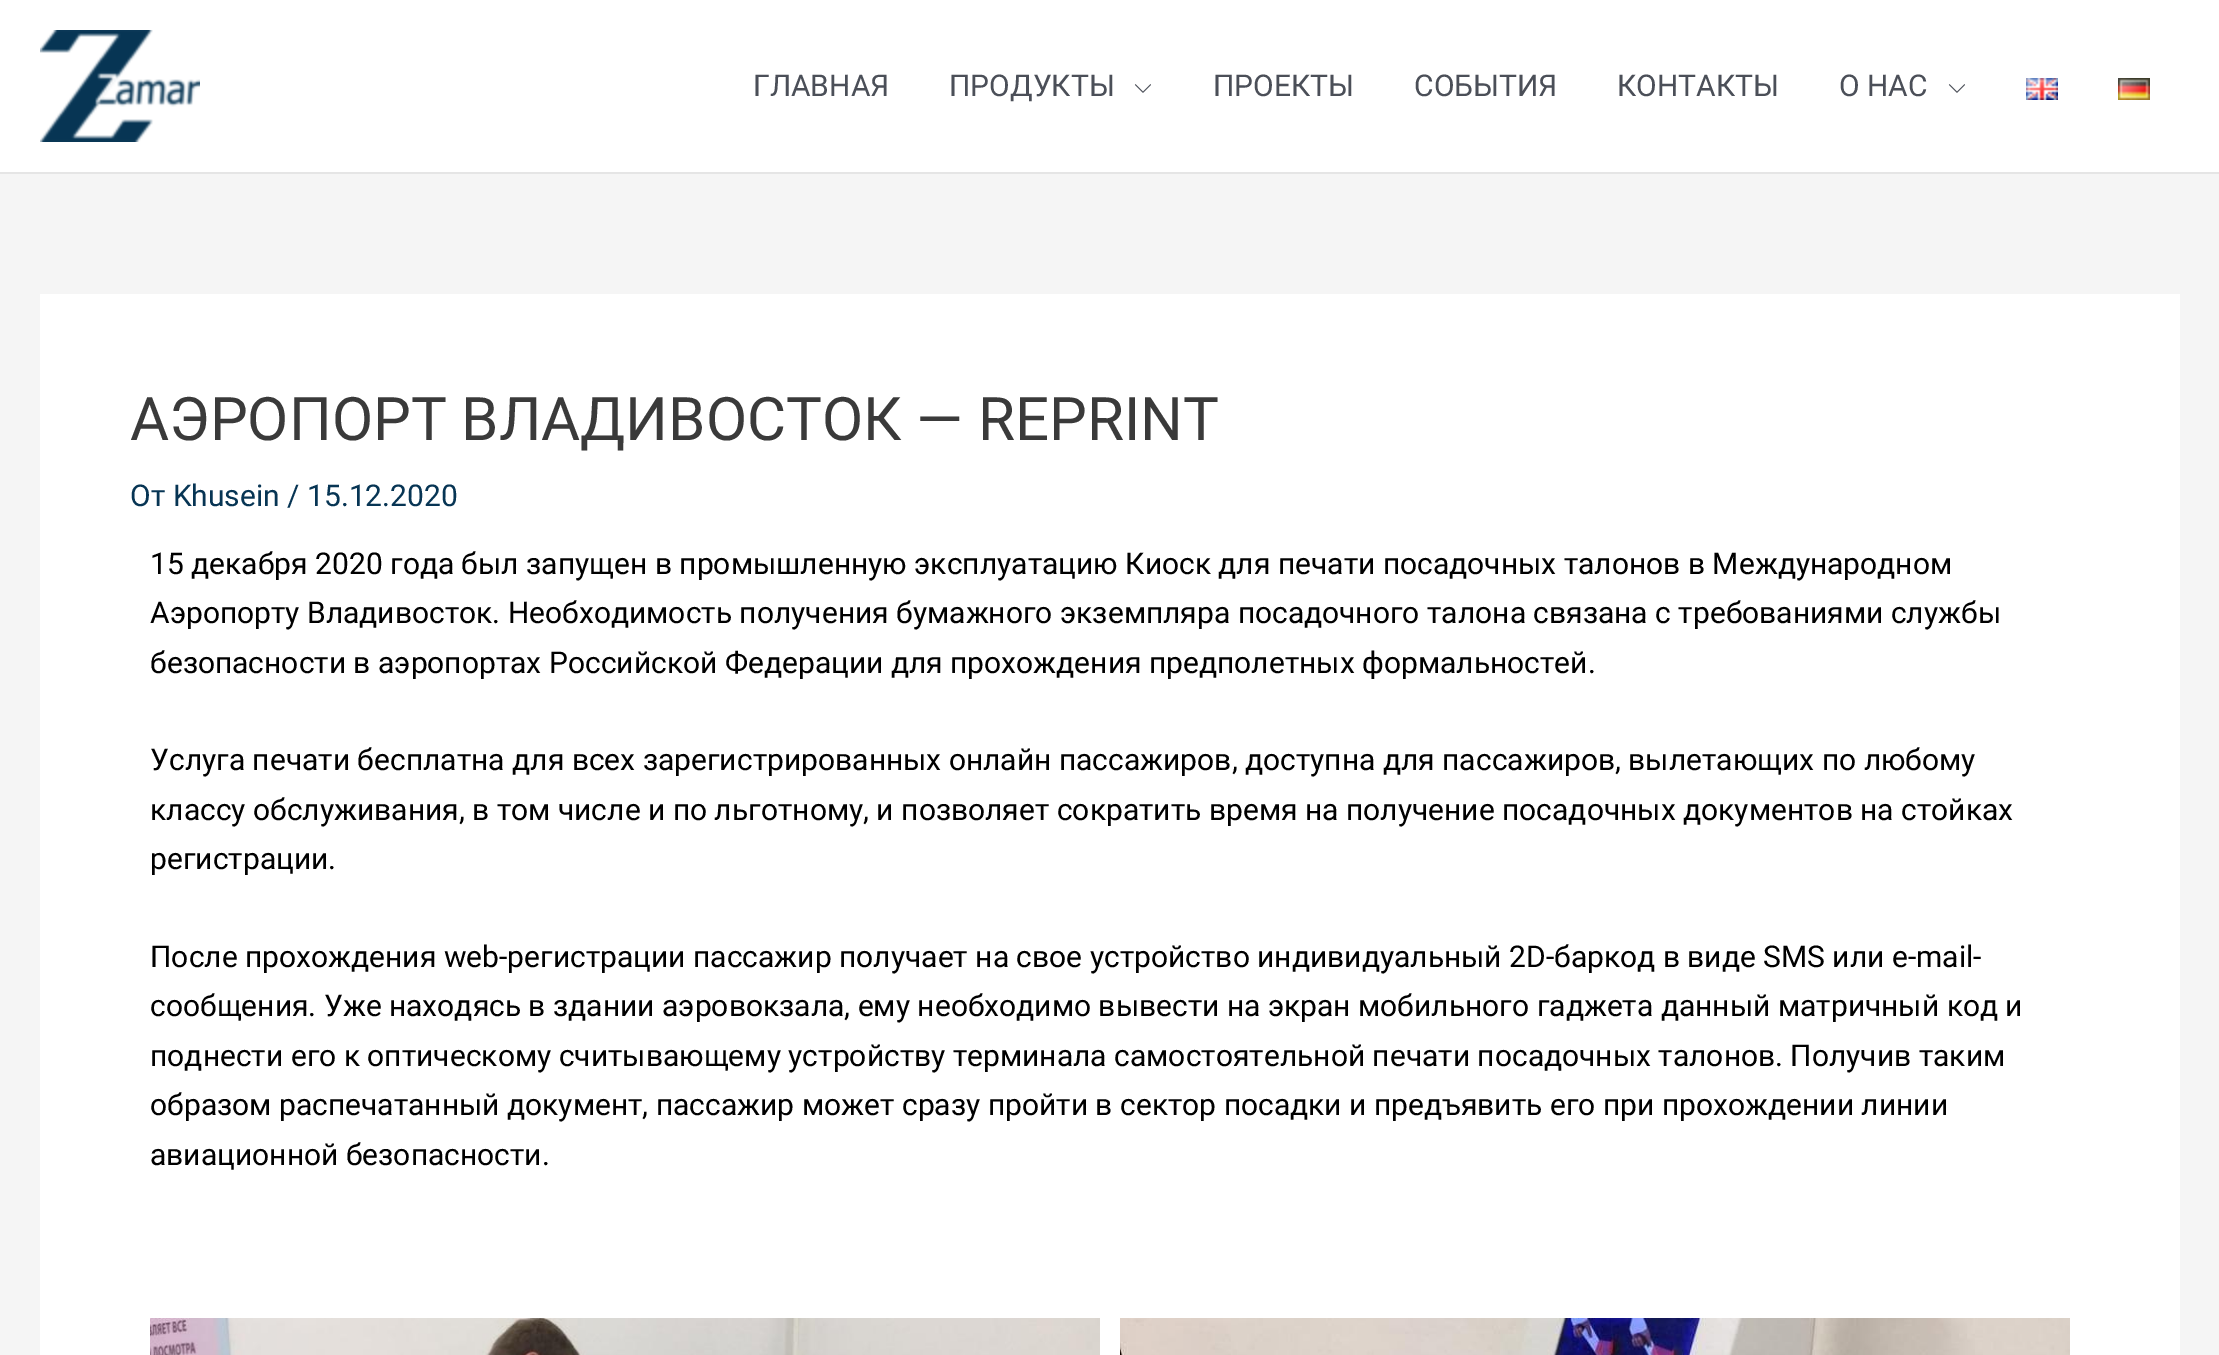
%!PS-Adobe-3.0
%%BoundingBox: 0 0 2219 1355
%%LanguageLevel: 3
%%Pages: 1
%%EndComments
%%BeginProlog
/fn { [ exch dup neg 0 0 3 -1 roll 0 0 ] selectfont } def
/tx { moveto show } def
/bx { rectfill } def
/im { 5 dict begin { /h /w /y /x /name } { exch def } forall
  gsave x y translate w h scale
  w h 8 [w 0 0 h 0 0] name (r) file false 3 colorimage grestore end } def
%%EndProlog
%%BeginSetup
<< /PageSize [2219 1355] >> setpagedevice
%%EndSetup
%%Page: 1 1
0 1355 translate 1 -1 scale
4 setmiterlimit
0.961 setgray
0 0 2219 1355 bx
1 setgray
0 0 2219 172 bx
0.898 setgray
0 172 2219 2 bx
(image0.raw) 40 30 160 112 im
/Roboto-Regular 30 fn
0.294 0.31 0.345 setrgbcolor
(ГЛАВНАЯ) 753 96 tx
(ПРОДУКТЫ) 949 96 tx
(image1.raw) 1134 84 17 9 im
(ПРОЕКТЫ) 1213 96 tx
(СОБЫТИЯ) 1414 96 tx
(КОНТАКТЫ) 1617 96 tx
(О НАС) 1839 96 tx
(image1.raw) 1948 84 17 9 im
(image2.raw) 2026 78 32 22 im
(image3.raw) 2118 78 32 22 im
1 setgray
40 294 2140 1061 bx
/Roboto-Regular 60 fn
0.227 setgray
(АЭРОПОРТ ВЛАДИВОСТОК — REPRINT) 130 440 tx
/Roboto-Regular 30 fn
0.027 0.208 0.329 setrgbcolor
(От Khusein / 15.12.2020) 130 506 tx
0 setgray
(15 декабря 2020 года был запущен в промышленную эксплуатацию Киоск для печати посадочных талонов в Международном) 150 574 tx
(Аэропорту Владивосток. Необходимость получения бумажного экземпляра посадочного талона связана с требованиями службы) 150 623 tx
(безопасности в аэропортах Российской Федерации для прохождения предполетных формальностей.) 150 673 tx
(Услуга печати бесплатна для всех зарегистрированных онлайн пассажиров, доступна для пассажиров, вылетающих по любому) 150 770 tx
(классу обслуживания, в том числе и по льготному, и позволяет сократить время на получение посадочных документов на стойках) 150 820 tx
(регистрации.) 150 869 tx
(После прохождения web-регистрации пассажир получает на свое устройство индивидуальный 2D-баркод в виде SMS или e-mail-) 150 967 tx
(сообщения. Уже находясь в здании аэровокзала, ему необходимо вывести на экран мобильного гаджета данный матричный код и) 150 1016 tx
(поднести его к оптическому считывающему устройству терминала самостоятельной печати посадочных талонов. Получив таким) 150 1066 tx
(образом распечатанный документ, пассажир может сразу пройти в сектор посадки и предъявить его при прохождении линии) 150 1115 tx
(авиационной безопасности.) 150 1165 tx
(image4.raw) 150 1318 950 37 im
(image5.raw) 1120 1318 950 37 im
showpage
%%EOF
